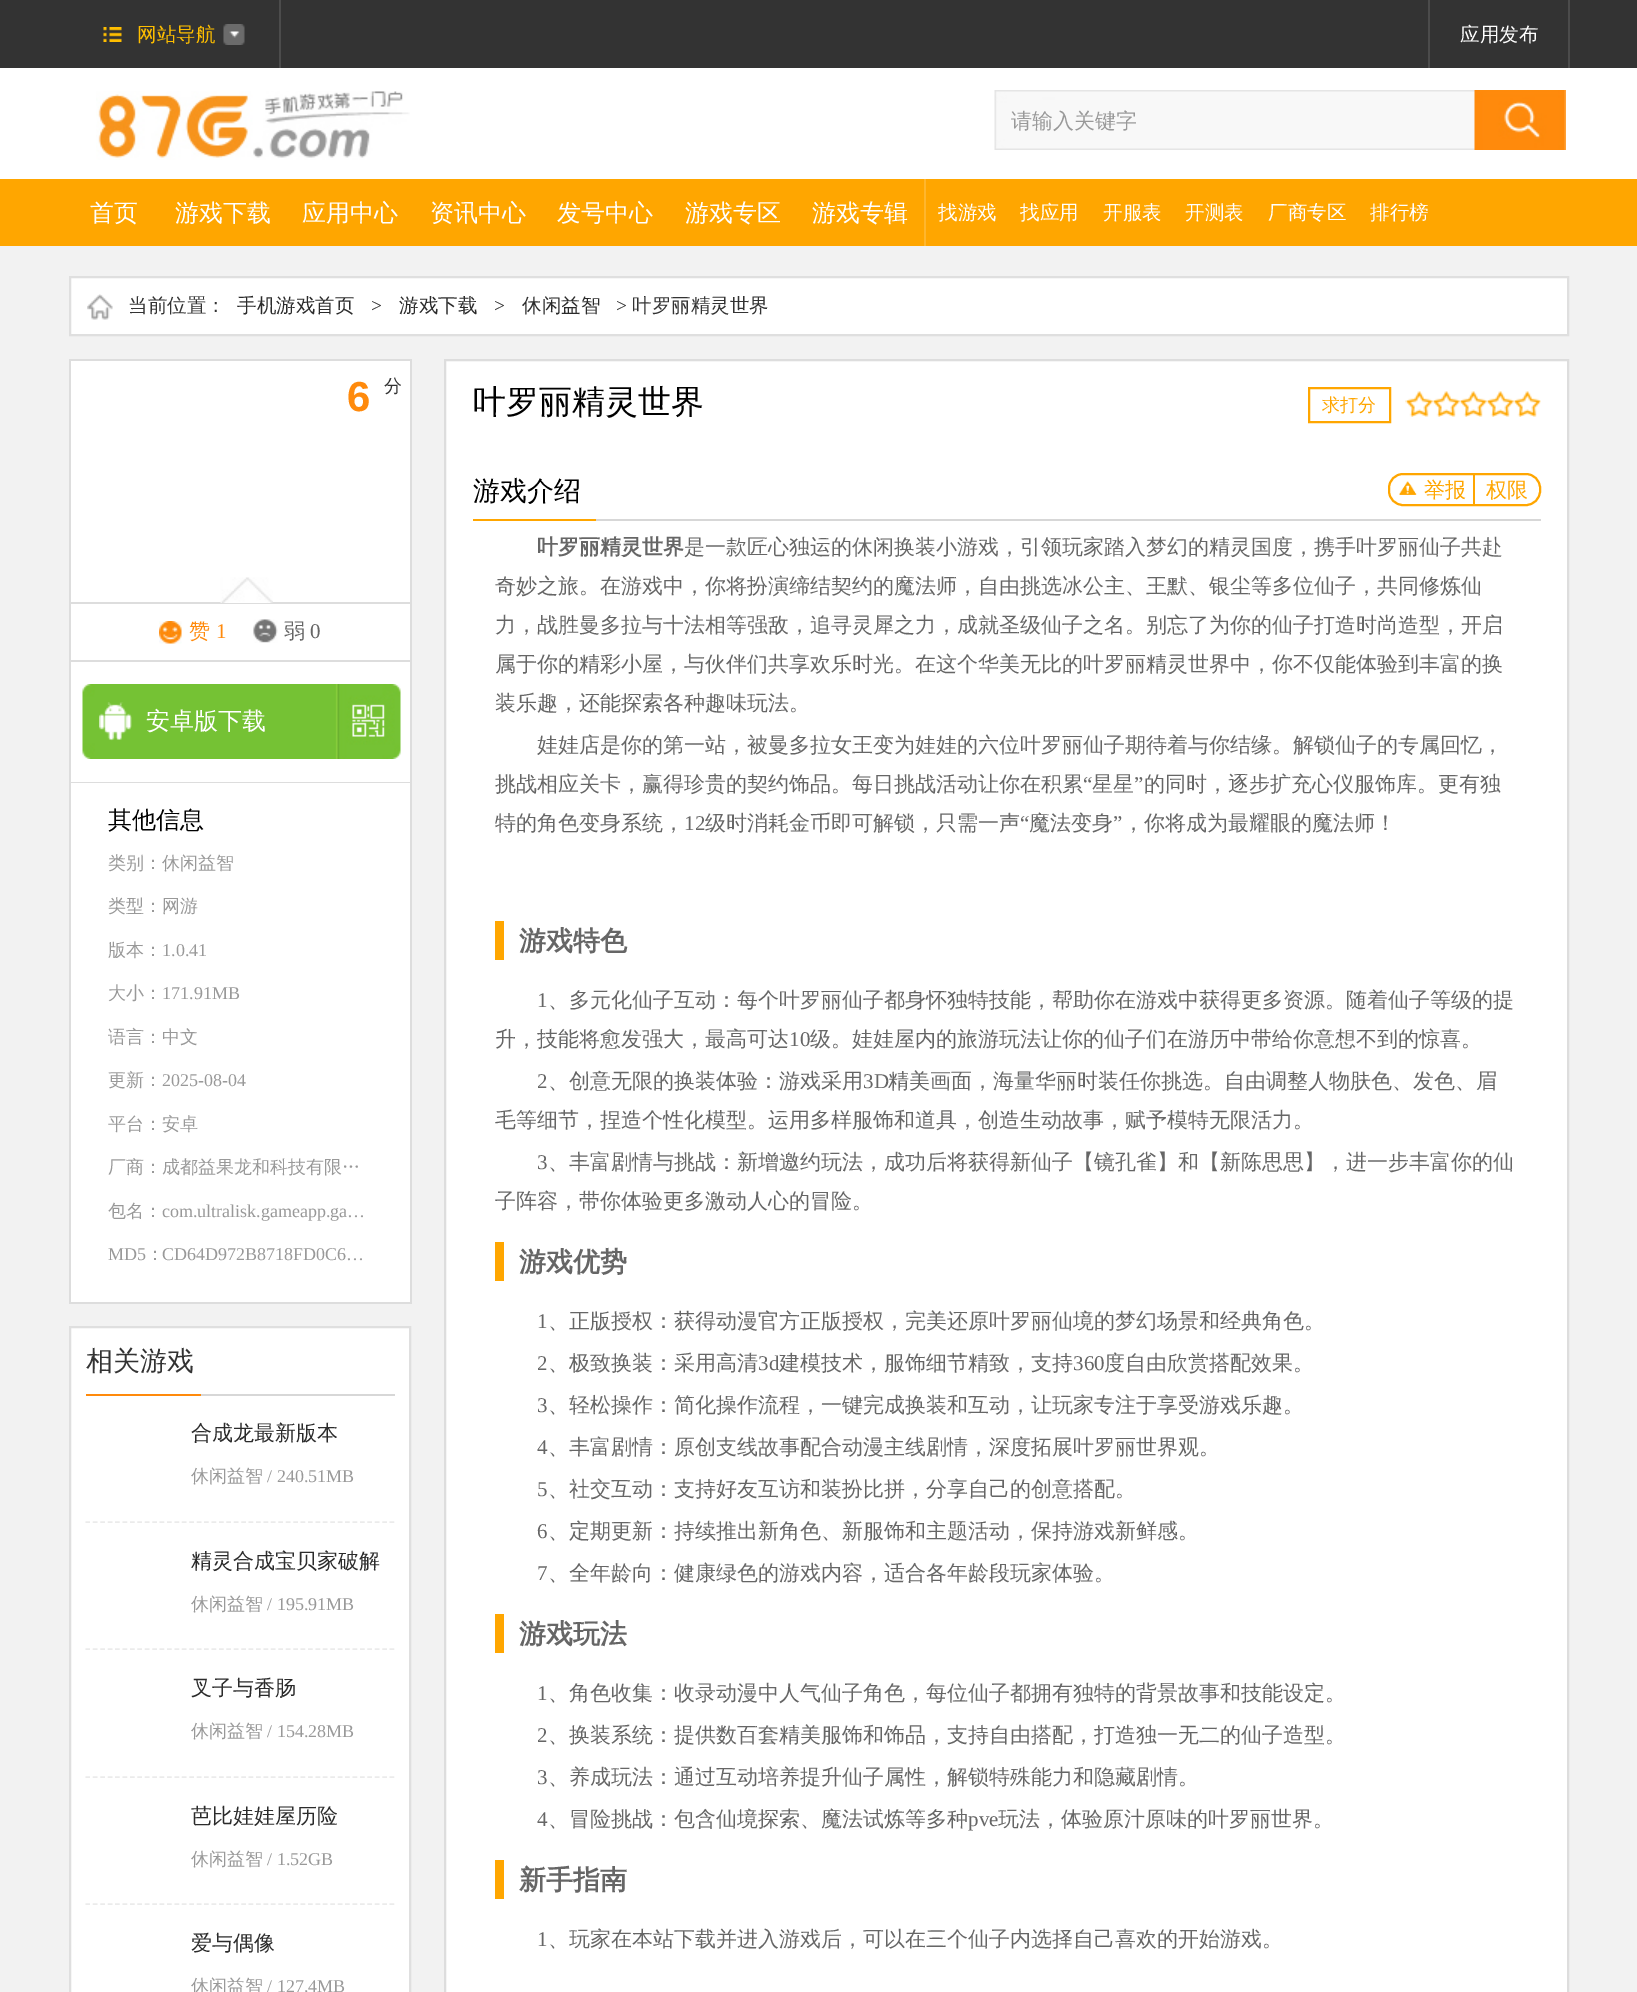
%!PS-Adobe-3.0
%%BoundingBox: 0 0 1637 1992
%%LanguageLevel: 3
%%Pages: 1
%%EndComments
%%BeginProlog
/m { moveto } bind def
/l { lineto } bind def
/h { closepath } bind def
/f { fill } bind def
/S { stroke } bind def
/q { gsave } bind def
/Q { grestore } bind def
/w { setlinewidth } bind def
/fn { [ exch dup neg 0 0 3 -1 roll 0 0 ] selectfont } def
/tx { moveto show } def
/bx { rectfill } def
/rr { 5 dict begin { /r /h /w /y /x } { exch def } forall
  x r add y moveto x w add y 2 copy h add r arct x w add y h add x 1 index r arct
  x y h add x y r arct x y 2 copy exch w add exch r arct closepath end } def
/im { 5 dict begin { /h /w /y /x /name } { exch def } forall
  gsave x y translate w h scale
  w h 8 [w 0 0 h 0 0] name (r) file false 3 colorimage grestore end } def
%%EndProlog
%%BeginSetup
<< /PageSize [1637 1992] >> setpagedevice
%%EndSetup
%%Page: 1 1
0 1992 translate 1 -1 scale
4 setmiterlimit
0.949 setgray
0 0 1637 1992 bx
0.2 setgray
0 0 1637 68 bx
0.298 setgray
279 0 2 68 bx
(image0.raw) 103 27 19 15 im
(image1.raw) 223 24 22 21 im
/WenQuanYiZenHei-Medium 19.5 fn
0.996 0.745 0 setrgbcolor
(网站导航) 137 41 tx
0.294 setgray
1568 0 2 68 bx
1428 0 2 68 bx
1 setgray
(应用发布) 1460 41 tx
0 68 1637 111 bx
(image2.raw) 96 91 314 69 im
(image3.raw) 994 90 572 60 im
/WenQuanYiZenHei-Medium 21 fn
0.6 setgray
(请输入关键字) 1011 128 tx
1 0.651 0 setrgbcolor
0 179 1637 67 bx
1 0.714 0.176 setrgbcolor
924 179 2 67 bx
/WenQuanYiZenHei-Medium 24 fn
1 setgray
(首页) 90 221 tx
(游戏下载) 175 221 tx
(应用中心) 302 221 tx
(资讯中心) 430 221 tx
(发号中心) 557 221 tx
(游戏专区) 685 221 tx
(游戏专辑) 812 221 tx
/WenQuanYiZenHei-Medium 19.5 fn
(找游戏) 938 219 tx
(找应用) 1020 219 tx
(开服表) 1103 219 tx
(开测表) 1185 219 tx
(厂商专区) 1268 219 tx
(排行榜) 1370 219 tx
71 278 1496 56 bx
(image4.raw) 87 294 26 26 im
0.875 setgray
2 w
70 277 1498 58 rectstroke
0.2 setgray
(当前位置：) 128 312 tx
0.169 setgray
(手机游戏首页) 237 312 tx
/LiberationSerif-Regular 19.5 fn
0.2 setgray
(>) 371 312 tx
/WenQuanYiZenHei-Medium 19.5 fn
0.169 setgray
(游戏下载) 399 312 tx
/LiberationSerif-Regular 19.5 fn
0.2 setgray
(>) 494 312 tx
/WenQuanYiZenHei-Medium 19.5 fn
0.169 setgray
(休闲益智) 522 312 tx
/LiberationSerif-Regular 19.5 fn
0.2 setgray
(>) 616 312 tx
/WenQuanYiZenHei-Medium 19.5 fn
(叶罗丽精灵世界) 632 312 tx
1 setgray
71 361 339 421 bx
0.867 setgray
69 359 342 2 bx
410 359 2 945 bx
69 359 2 424 bx
/LiberationSans-Bold 42 fn
1 0.541 0.047 setrgbcolor
347 411 m -4 0 (6) ashow
/WenQuanYiZenHei-Medium 18 fn
0.2 setgray
(分) 384 392 tx
0.867 setgray
71 602 339 2 bx
(image5.raw) 220 577 53 26 im
71 660 339 2 bx
(image6.raw) 159 621 23 23 im
/WenQuanYiZenHei-Medium 21 fn
1 0.541 0.047 setrgbcolor
(赞) 189 638 tx
/LiberationSerif-Regular 21 fn
(1) 216 638 tx
(image7.raw) 253 619 25 24 im
/WenQuanYiZenHei-Medium 21 fn
0.4 setgray
(弱) 284 638 tx
/LiberationSerif-Regular 21 fn
(0) 310 638 tx
0.867 setgray
71 782 339 1 bx
(image8.raw) 82 684 319 75 im
(image9.raw) 99 702 33 39 im
/WenQuanYiZenHei-Medium 24 fn
1 setgray
(安卓版下载) 146 729 tx
71 783 339 519 bx
0.867 setgray
69 1302 342 2 bx
69 783 2 521 bx
0 setgray
(其他信息) 108 828 tx
/WenQuanYiZenHei-Medium 18 fn
0.6 setgray
(类别：休闲益智) 108 869 tx
(类型：网游) 108 912 tx
(版本：) 108 956 tx
/LiberationSerif-Regular 18 fn
(1.0.41) 162 956 tx
/WenQuanYiZenHei-Medium 18 fn
(大小：) 108 999 tx
/LiberationSerif-Regular 18 fn
(171.91MB) 162 999 tx
/WenQuanYiZenHei-Medium 18 fn
(语言：中文) 108 1043 tx
(更新：) 108 1086 tx
/LiberationSerif-Regular 18 fn
(2025-08-04) 162 1086 tx
/WenQuanYiZenHei-Medium 18 fn
(平台：安卓) 108 1130 tx
(厂商：成都益果龙和科技有限…) 108 1173 tx
(包名：) 108 1217 tx
/LiberationSerif-Regular 18 fn
(com.ultralisk.gameapp.ga…) 162 1217 tx
(MD5) 108 1260 tx
/WenQuanYiZenHei-Medium 18 fn
(：) 146 1260 tx
/LiberationSerif-Regular 18 fn
(CD64D972B8718FD0C6…) 162 1260 tx
1 setgray
70 1327 m 410 1327 l 410 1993 l 70 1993 l h q f Q
0.875 setgray
S
0.843 setgray
201 1394 194 2 bx
1 0.541 0.047 setrgbcolor
86 1394 115 2 bx
/WenQuanYiZenHei-Medium 27 fn
0.2 setgray
(相关游戏) 86 1370 tx
0.922 setgray
1.5 w
[4.5 2.92] 0 setdash
85.5 1522 m 394.5 1522 l S
/WenQuanYiZenHei-Medium 21 fn
0.169 setgray
(合成龙最新版本) 191 1440 tx
/WenQuanYiZenHei-Medium 18 fn
0.6 setgray
(休闲益智) 191 1482 tx
/LiberationSerif-Regular 18 fn
(/ 240.51MB) 267 1482 tx
0.922 setgray
85.5 1649 m 394.5 1649 l S
/WenQuanYiZenHei-Medium 21 fn
0.169 setgray
(精灵合成宝贝家破解) 191 1568 tx
/WenQuanYiZenHei-Medium 18 fn
0.6 setgray
(休闲益智) 191 1610 tx
/LiberationSerif-Regular 18 fn
(/ 195.91MB) 267 1610 tx
0.922 setgray
85.5 1777 m 394.5 1777 l S
/WenQuanYiZenHei-Medium 21 fn
0.169 setgray
(叉子与香肠) 191 1695 tx
/WenQuanYiZenHei-Medium 18 fn
0.6 setgray
(休闲益智) 191 1737 tx
/LiberationSerif-Regular 18 fn
(/ 154.28MB) 267 1737 tx
0.922 setgray
85.5 1904 m 394.5 1904 l S
/WenQuanYiZenHei-Medium 21 fn
0.169 setgray
(芭比娃娃屋历险) 191 1823 tx
/WenQuanYiZenHei-Medium 18 fn
0.6 setgray
(休闲益智) 191 1865 tx
/LiberationSerif-Regular 18 fn
(/ 1.52GB) 267 1865 tx
/WenQuanYiZenHei-Medium 21 fn
0.169 setgray
(爱与偶像) 191 1950 tx
/WenQuanYiZenHei-Medium 18 fn
0.6 setgray
(休闲益智) 191 1992 tx
/LiberationSerif-Regular 18 fn
(/ 127.4MB) 267 1992 tx
1 setgray
445 360 m 1568 360 l 1568 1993 l 445 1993 l h q f Q
0.867 setgray
2 w
[] 0 setdash
S
/WenQuanYiZenHei-Medium 33 fn
0 setgray
(叶罗丽精灵世界) 473 413 tx
1 0.651 0 setrgbcolor
1309 388 81 34 rectstroke
/WenQuanYiZenHei-Medium 18 fn
(求打分) 1322 411 tx
(image10.raw) 1405 391 136 26 im
0.843 setgray
596 519 945 2 bx
1 0.651 0 setrgbcolor
473 519 123 2 bx
/WenQuanYiZenHei-Medium 27 fn
0 setgray
(游戏介绍) 473 500 tx
1 0.651 0 setrgbcolor
1389 474 151 31 14 rr S
(image11.raw) 1399 481 18 14 im
/WenQuanYiZenHei-Medium 21 fn
(举报) 1424 497 tx
1473 474 2 30 bx
(权限) 1486 497 tx
/WenQuanYiZenHei-Bold 21 fn
0.4 setgray
(叶罗丽精灵世界) 537 554 tx
/WenQuanYiZenHei-Medium 21 fn
(是一款匠心独运的休闲换装小游戏，引领玩家踏入梦幻的精灵国度，携手叶罗丽仙子共赴) 684 554 tx
(奇妙之旅。在游戏中，你将扮演缔结契约的魔法师，自由挑选冰公主、王默、银尘等多位仙子，共同修炼仙) 495 593 tx
(力，战胜曼多拉与十法相等强敌，追寻灵犀之力，成就圣级仙子之名。别忘了为你的仙子打造时尚造型，开启) 495 632 tx
(属于你的精彩小屋，与伙伴们共享欢乐时光。在这个华美无比的叶罗丽精灵世界中，你不仅能体验到丰富的换) 495 671 tx
(装乐趣，还能探索各种趣味玩法。) 495 710 tx
(娃娃店是你的第一站，被曼多拉女王变为娃娃的六位叶罗丽仙子期待着与你结缘。解锁仙子的专属回忆，) 537 752 tx
(挑战相应关卡，赢得珍贵的契约饰品。每日挑战活动让你在积累) 495 791 tx
/LiberationSerif-Regular 21 fn
(“) 1083 791 tx
/WenQuanYiZenHei-Medium 21 fn
(星星) 1092 791 tx
/LiberationSerif-Regular 21 fn
(”) 1134 791 tx
/WenQuanYiZenHei-Medium 21 fn
(的同时，逐步扩充心仪服饰库。更有独) 1144 791 tx
(特的角色变身系统，) 495 830 tx
/LiberationSerif-Regular 21 fn
(12) 684 830 tx
/WenQuanYiZenHei-Medium 21 fn
(级时消耗金币即可解锁，只需一声) 705 830 tx
/LiberationSerif-Regular 21 fn
(“) 1020 830 tx
/WenQuanYiZenHei-Medium 21 fn
(魔法变身) 1029 830 tx
/LiberationSerif-Regular 21 fn
(”) 1113 830 tx
/WenQuanYiZenHei-Medium 21 fn
(，你将成为最耀眼的魔法师！) 1123 830 tx
1 0.651 0 setrgbcolor
495 921 9 39 bx
/WenQuanYiZenHei-Bold 27 fn
0.4 setgray
(游戏特色) 519 950 tx
/LiberationSerif-Regular 21 fn
(1) 537 1007 tx
/WenQuanYiZenHei-Medium 21 fn
(、多元化仙子互动：每个叶罗丽仙子都身怀独特技能，帮助你在游戏中获得更多资源。随着仙子等级的提) 548 1007 tx
(升，技能将愈发强大，最高可达) 495 1046 tx
/LiberationSerif-Regular 21 fn
(10) 789 1046 tx
/WenQuanYiZenHei-Medium 21 fn
(级。娃娃屋内的旅游玩法让你的仙子们在游历中带给你意想不到的惊喜。) 810 1046 tx
/LiberationSerif-Regular 21 fn
(2) 537 1088 tx
/WenQuanYiZenHei-Medium 21 fn
(、创意无限的换装体验：游戏采用) 548 1088 tx
/LiberationSerif-Regular 21 fn
(3D) 863 1088 tx
/WenQuanYiZenHei-Medium 21 fn
(精美画面，海量华丽时装任你挑选。自由调整人物肤色、发色、眉) 888 1088 tx
(毛等细节，捏造个性化模型。运用多样服饰和道具，创造生动故事，赋予模特无限活力。) 495 1127 tx
/LiberationSerif-Regular 21 fn
(3) 537 1169 tx
/WenQuanYiZenHei-Medium 21 fn
(、丰富剧情与挑战：新增邀约玩法，成功后将获得新仙子【镜孔雀】和【新陈思思】，进一步丰富你的仙) 548 1169 tx
(子阵容，带你体验更多激动人心的冒险。) 495 1208 tx
1 0.651 0 setrgbcolor
495 1242 9 39 bx
/WenQuanYiZenHei-Bold 27 fn
0.4 setgray
(游戏优势) 519 1271 tx
/LiberationSerif-Regular 21 fn
(1) 537 1328 tx
/WenQuanYiZenHei-Medium 21 fn
(、正版授权：获得动漫官方正版授权，完美还原叶罗丽仙境的梦幻场景和经典角色。) 548 1328 tx
/LiberationSerif-Regular 21 fn
(2) 537 1370 tx
/WenQuanYiZenHei-Medium 21 fn
(、极致换装：采用高清) 548 1370 tx
/LiberationSerif-Regular 21 fn
(3d) 758 1370 tx
/WenQuanYiZenHei-Medium 21 fn
(建模技术，服饰细节精致，支持) 779 1370 tx
/LiberationSerif-Regular 21 fn
(360) 1073 1370 tx
/WenQuanYiZenHei-Medium 21 fn
(度自由欣赏搭配效果。) 1104 1370 tx
/LiberationSerif-Regular 21 fn
(3) 537 1412 tx
/WenQuanYiZenHei-Medium 21 fn
(、轻松操作：简化操作流程，一键完成换装和互动，让玩家专注于享受游戏乐趣。) 548 1412 tx
/LiberationSerif-Regular 21 fn
(4) 537 1454 tx
/WenQuanYiZenHei-Medium 21 fn
(、丰富剧情：原创支线故事配合动漫主线剧情，深度拓展叶罗丽世界观。) 548 1454 tx
/LiberationSerif-Regular 21 fn
(5) 537 1496 tx
/WenQuanYiZenHei-Medium 21 fn
(、社交互动：支持好友互访和装扮比拼，分享自己的创意搭配。) 548 1496 tx
/LiberationSerif-Regular 21 fn
(6) 537 1538 tx
/WenQuanYiZenHei-Medium 21 fn
(、定期更新：持续推出新角色、新服饰和主题活动，保持游戏新鲜感。) 548 1538 tx
/LiberationSerif-Regular 21 fn
(7) 537 1580 tx
/WenQuanYiZenHei-Medium 21 fn
(、全年龄向：健康绿色的游戏内容，适合各年龄段玩家体验。) 548 1580 tx
1 0.651 0 setrgbcolor
495 1614 9 39 bx
/WenQuanYiZenHei-Bold 27 fn
0.4 setgray
(游戏玩法) 519 1643 tx
/LiberationSerif-Regular 21 fn
(1) 537 1700 tx
/WenQuanYiZenHei-Medium 21 fn
(、角色收集：收录动漫中人气仙子角色，每位仙子都拥有独特的背景故事和技能设定。) 548 1700 tx
/LiberationSerif-Regular 21 fn
(2) 537 1742 tx
/WenQuanYiZenHei-Medium 21 fn
(、换装系统：提供数百套精美服饰和饰品，支持自由搭配，打造独一无二的仙子造型。) 548 1742 tx
/LiberationSerif-Regular 21 fn
(3) 537 1784 tx
/WenQuanYiZenHei-Medium 21 fn
(、养成玩法：通过互动培养提升仙子属性，解锁特殊能力和隐藏剧情。) 548 1784 tx
/LiberationSerif-Regular 21 fn
(4) 537 1826 tx
/WenQuanYiZenHei-Medium 21 fn
(、冒险挑战：包含仙境探索、魔法试炼等多种) 548 1826 tx
/LiberationSerif-Regular 21 fn
(pve) 968 1826 tx
/WenQuanYiZenHei-Medium 21 fn
(玩法，体验原汁原味的叶罗丽世界。) 998 1826 tx
1 0.651 0 setrgbcolor
495 1860 9 39 bx
/WenQuanYiZenHei-Bold 27 fn
0.4 setgray
(新手指南) 519 1889 tx
/LiberationSerif-Regular 21 fn
(1) 537 1946 tx
/WenQuanYiZenHei-Medium 21 fn
(、玩家在本站下载并进入游戏后，可以在三个仙子内选择自己喜欢的开始游戏。) 548 1946 tx
showpage
%%EOF
